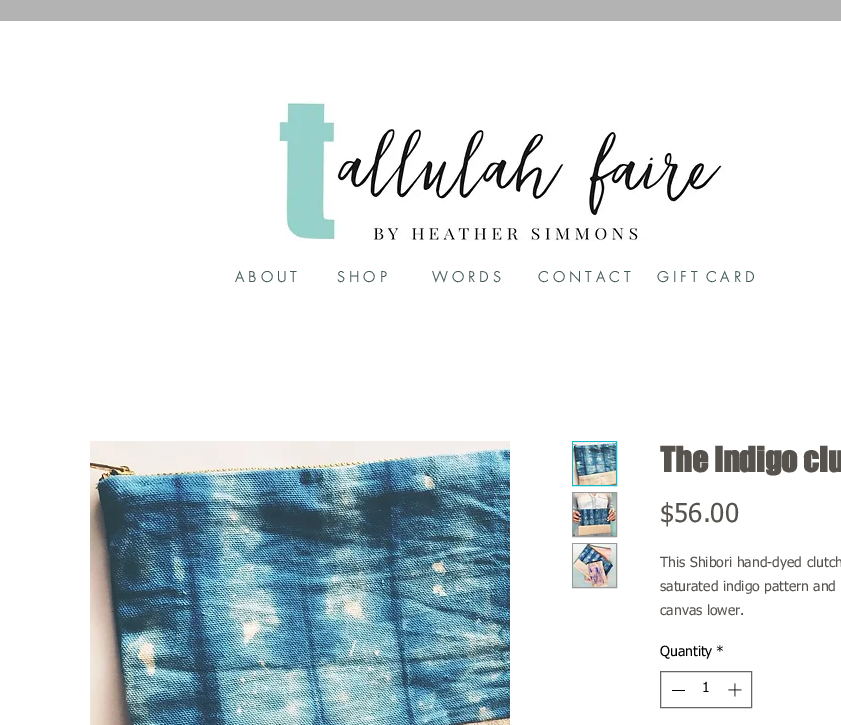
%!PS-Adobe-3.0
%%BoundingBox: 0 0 841 725
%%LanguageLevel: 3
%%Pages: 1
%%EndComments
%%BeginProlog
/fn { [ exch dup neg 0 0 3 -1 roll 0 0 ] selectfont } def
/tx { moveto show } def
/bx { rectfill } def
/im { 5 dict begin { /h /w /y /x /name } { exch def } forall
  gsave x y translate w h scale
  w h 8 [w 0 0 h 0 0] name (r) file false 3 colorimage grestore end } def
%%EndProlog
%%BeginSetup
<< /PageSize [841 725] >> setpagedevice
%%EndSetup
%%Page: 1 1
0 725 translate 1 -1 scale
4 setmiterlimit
1 setgray
0 0 841 725 bx
0.702 setgray
0 0 841 21 bx
(image0.raw) 277 101 448 140 im
/futura-Bold 14 fn
0.267 0.353 0.353 setrgbcolor
(A B O U T) 235 282 tx
(S H O P) 337 282 tx
(W O R D S) 432 282 tx
(C O N T A C T) 538 282 tx
(G I F T  C A R D) 657 282 tx
(image1.raw) 90 441 420 284 im
0.09 0.722 0.788 setrgbcolor
572.5 441.5 44 44 rectstroke
(image2.raw) 573 442 43 43 im
0.6 setgray
572.5 492.5 44 44 rectstroke
(image3.raw) 573 493 43 43 im
572.5 543.5 44 44 rectstroke
(image4.raw) 573 544 43 43 im
/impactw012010-Bold 32 fn
0.337 0.325 0.31 setrgbcolor
(The Indigo clu) 660 472 tx
/tahoma-Regular 26 fn
($56.00) 660 522 tx
/tahoma-Regular 14 fn
(This Shibori hand-dyed clutch) 660 567 tx
(saturated indigo pattern and) 660 591 tx
(canvas lower.) 660 615 tx
0 setgray
(Quantity) 660 656 tx
(*) 716 656 tx
0.4 setgray
660.5 671.5 91 36 rectstroke
0 setgray
672 690 13 1 bx
(1) 702 692 tx
(image5.raw) 728 683 14 14 im
showpage
%%EOF
